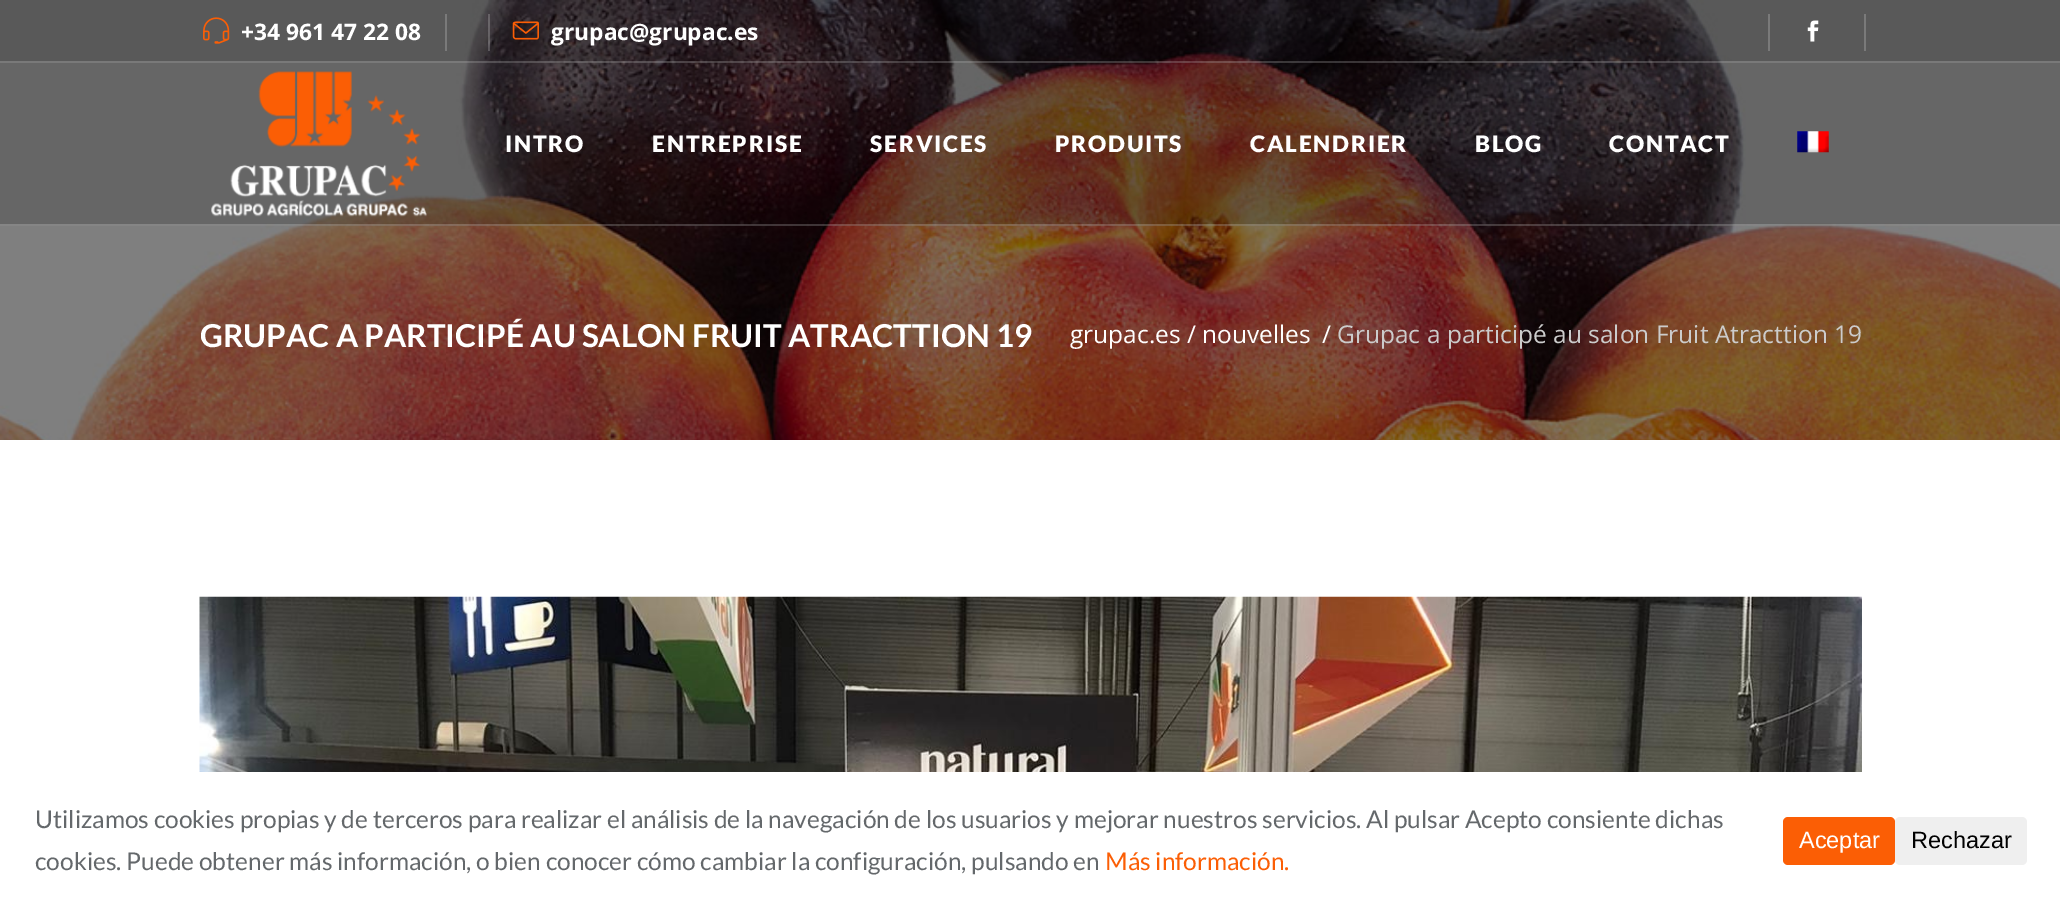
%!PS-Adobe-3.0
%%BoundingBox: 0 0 2060 908
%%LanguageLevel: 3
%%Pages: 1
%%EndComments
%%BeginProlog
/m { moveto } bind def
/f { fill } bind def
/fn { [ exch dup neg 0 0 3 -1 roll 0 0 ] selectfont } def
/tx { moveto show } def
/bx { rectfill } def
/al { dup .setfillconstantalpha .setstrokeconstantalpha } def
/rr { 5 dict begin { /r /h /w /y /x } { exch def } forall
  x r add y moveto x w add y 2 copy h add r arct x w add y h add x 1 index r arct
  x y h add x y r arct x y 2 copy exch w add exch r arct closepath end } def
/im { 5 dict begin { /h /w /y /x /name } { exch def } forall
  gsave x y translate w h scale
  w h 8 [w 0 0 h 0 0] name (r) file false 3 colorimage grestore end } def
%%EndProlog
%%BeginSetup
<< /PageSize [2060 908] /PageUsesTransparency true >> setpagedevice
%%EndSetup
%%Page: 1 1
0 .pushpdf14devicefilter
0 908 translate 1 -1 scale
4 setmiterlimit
1 setgray
0 0 2060 908 bx
(image5.raw) 0 0 2060 440 im
0.3 al
0 setgray
0 0 2060 63 bx
0.2 al
0.98 setgray
0 61 2060 2 bx
1 al
(image0.raw) 203 17 27 27 im
/OpenSans-Bold 22.75 fn
1 setgray
(+34 961 47 22 08) 241 40 tx
0.478 setgray
445 14 2 37 bx
0.2 al
1 setgray
488 14 2 37 bx
1 al
(image1.raw) 512 21 27 19 im
(grupac@grupac.es) 551 40 tx
0.478 setgray
1768 14 2 37 bx
(image2.raw) 1807 20 12 22 im
1864 14 2 37 bx
0.2 al
0 setgray
0 63 2060 163 bx
1 setgray
0 224 2060 2 bx
1 al
(image3.raw) 211 71 216 146 im
/Lato-Black 22.75 fn
505 152 m 1.75 0 (INTRO) ashow
652 152 m 1.75 0 (ENTREPRISE) ashow
870 152 m 1.75 0 (SERVICES) ashow
1055 152 m 1.75 0 (PRODUITS) ashow
1250 152 m 1.75 0 (CALENDRIER) ashow
1475 152 m 1.75 0 (BLOG) ashow
1609 152 m 1.75 0 (CONTACT) ashow
(image4.raw) 1797 131 32 22 im
/Lato-Bold 31.5 fn
(GRUPAC A PARTICIPÉ AU SALON FRUIT ATRACTTION 19) 200 347 tx
/OpenSans-Regular 24.5 fn
(grupac.es / nouvelles) 1070 343 tx
(/) 1322 343 tx
0.8 setgray
(Grupac a participé au salon Fruit Atracttion 19) 1337 343 tx
(image6.raw) 199 596 1663 176 im
/Lato-Regular 24.5 fn
0.392 0.408 0.42 setrgbcolor
(Utilizamos cookies propias y de terceros para realizar el análisis de la navegación de los usuarios y mejorar nuestros servicios. Al pulsar Acepto consiente dichas) 35 828 tx
(cookies. Puede obtener más información, o bien conocer cómo cambiar la configuración, pulsando en) 35 870 tx
0.984 0.369 0.02 setrgbcolor
(Más información.) 1105 870 tx
1783 817 112 48 5 rr f
/LiberationSans-Regular 23.5 fn
1 setgray
(Aceptar) 1799 848 tx
0.937 setgray
1895 817 132 48 5 rr f
0 setgray
(Rechazar) 1911 848 tx
.poppdf14devicefilter showpage
%%EOF
